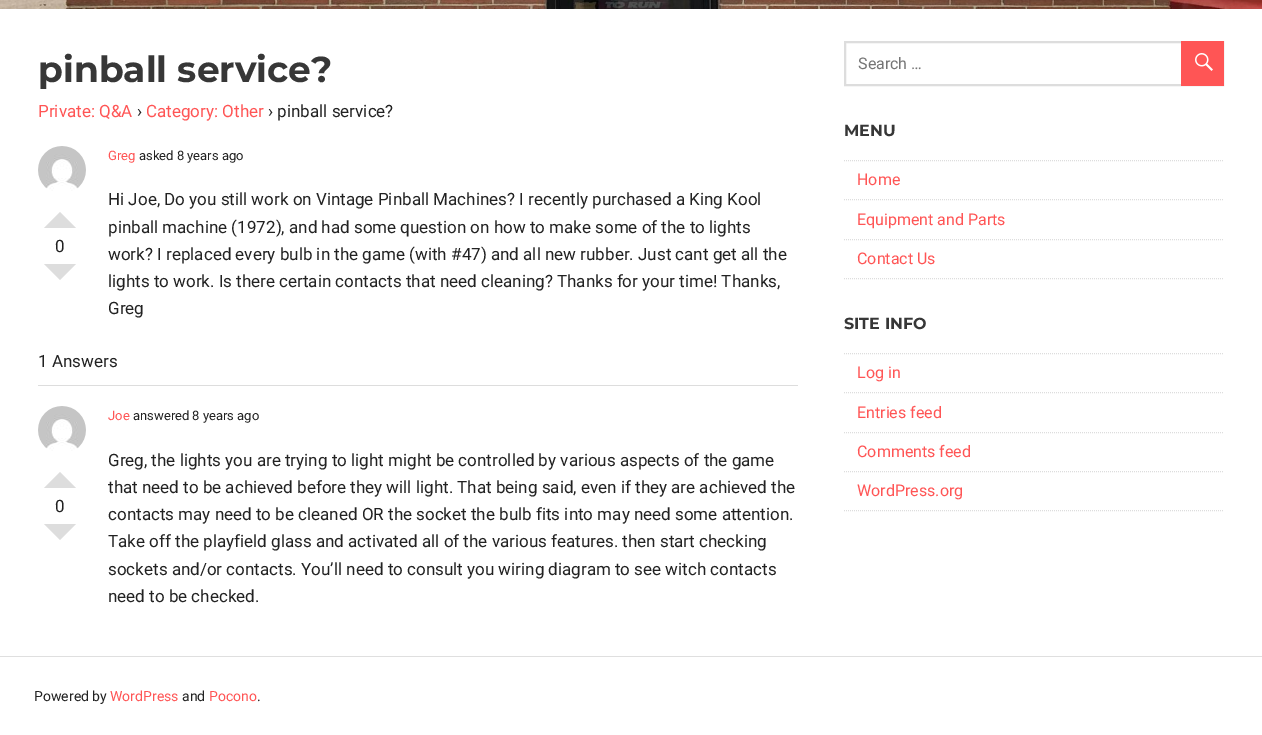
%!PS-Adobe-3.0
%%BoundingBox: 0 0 1262 735
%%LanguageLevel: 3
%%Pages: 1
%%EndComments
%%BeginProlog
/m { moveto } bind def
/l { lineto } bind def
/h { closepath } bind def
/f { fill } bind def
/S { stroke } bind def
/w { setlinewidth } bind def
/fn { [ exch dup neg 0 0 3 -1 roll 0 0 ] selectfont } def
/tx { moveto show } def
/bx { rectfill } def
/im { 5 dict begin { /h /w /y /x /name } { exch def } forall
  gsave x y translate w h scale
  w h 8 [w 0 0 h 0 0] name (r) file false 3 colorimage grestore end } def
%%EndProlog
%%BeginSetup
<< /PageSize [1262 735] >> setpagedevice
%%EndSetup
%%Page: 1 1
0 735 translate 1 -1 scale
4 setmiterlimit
1 setgray
0 0 1262 735 bx
(image0.raw) 0 0 1262 9 im
/Montserrat-Bold 36 fn
0.216 setgray
(pinball service?) 38 82 tx
/Roboto-Regular 17 fn
1 0.333 0.333 setrgbcolor
(Private: Q&A) 38 117 tx
0.133 setgray
(›) 137 117 tx
1 0.333 0.333 setrgbcolor
(Category: Other) 146 117 tx
0.133 setgray
(› pinball service?) 268 117 tx
(image1.raw) 38 146 48 45 im
/Roboto-Regular 13 fn
1 0.333 0.333 setrgbcolor
(Greg) 108 160 tx
0.133 setgray
(asked 8 years ago) 139 160 tx
0.867 setgray
76 228 m 44 228 l 60 212 l h f
/Roboto-Regular 17 fn
0.133 setgray
(0) 55 252 tx
0.867 setgray
44 264 m 76 264 l 60 280 l h f
0.133 setgray
(Hi Joe, Do you still work on Vintage Pinball Machines? I recently purchased a King Kool) 108 205 tx
(pinball machine \(1972\), and had some question on how to make some of the to lights) 108 233 tx
(work? I replaced every bulb in the game \(with #47\) and all new rubber. Just cant get all the) 108 260 tx
(lights to work. Is there certain contacts that need cleaning? Thanks for your time! Thanks,) 108 287 tx
(Greg) 108 314 tx
(1 Answers) 38 367 tx
0.867 setgray
38 385 760 1 bx
(image1.raw) 38 406 48 45 im
/Roboto-Regular 13 fn
1 0.333 0.333 setrgbcolor
(Joe) 108 420 tx
0.133 setgray
(answered 8 years ago) 133 420 tx
0.867 setgray
76 488 m 44 488 l 60 472 l h f
/Roboto-Regular 17 fn
0.133 setgray
(0) 55 512 tx
0.867 setgray
44 524 m 76 524 l 60 540 l h f
0.133 setgray
(Greg, the lights you are trying to light might be controlled by various aspects of the game) 108 466 tx
(that need to be achieved before they will light. That being said, even if they are achieved the) 108 493 tx
(contacts may need to be cleaned OR the socket the bulb fits into may need some attention.) 108 520 tx
(Take off the playfield glass and activated all of the various features. then start checking) 108 547 tx
(sockets and/or contacts. You’ll need to consult you wiring diagram to see witch contacts) 108 575 tx
(need to be checked.) 108 602 tx
0.867 setgray
2 w
845 42 378 43 rectstroke
/Roboto-Regular 16 fn
0.459 setgray
(Search …) 858 69 tx
1 0.333 0.333 setrgbcolor
1181 41 43 45 bx
(image2.raw) 1195 53 18 18 im
/Montserrat-Bold 16 fn
0.216 setgray
(MENU) 844 136 tx
0.867 setgray
1 w
[1 1] 0 setdash
844 160.5 m 1224 160.5 l S
844 199.5 m 1224 199.5 l S
/Roboto-Regular 16 fn
1 0.333 0.333 setrgbcolor
(Home) 857 185 tx
0.867 setgray
844 239.5 m 1224 239.5 l S
1 0.333 0.333 setrgbcolor
(Equipment and Parts) 857 225 tx
0.867 setgray
844 278.5 m 1224 278.5 l S
1 0.333 0.333 setrgbcolor
(Contact Us) 857 264 tx
/Montserrat-Bold 16 fn
0.216 setgray
(SITE INFO) 844 329 tx
0.867 setgray
844 353.5 m 1224 353.5 l S
844 392.5 m 1224 392.5 l S
/Roboto-Regular 16 fn
1 0.333 0.333 setrgbcolor
(Log in) 857 378 tx
0.867 setgray
844 432.5 m 1224 432.5 l S
1 0.333 0.333 setrgbcolor
(Entries feed) 857 418 tx
0.867 setgray
844 471.5 m 1224 471.5 l S
1 0.333 0.333 setrgbcolor
(Comments feed) 857 457 tx
0.867 setgray
844 510.5 m 1224 510.5 l S
1 0.333 0.333 setrgbcolor
(WordPress.org) 857 496 tx
0.875 setgray
0 656 1262 1 bx
/Roboto-Regular 14 fn
0.133 setgray
(Powered by) 34 701 tx
1 0.333 0.333 setrgbcolor
(WordPress) 110 701 tx
0.133 setgray
(and) 182 701 tx
1 0.333 0.333 setrgbcolor
(Pocono) 209 701 tx
0.133 setgray
(.) 257 701 tx
showpage
%%EOF
